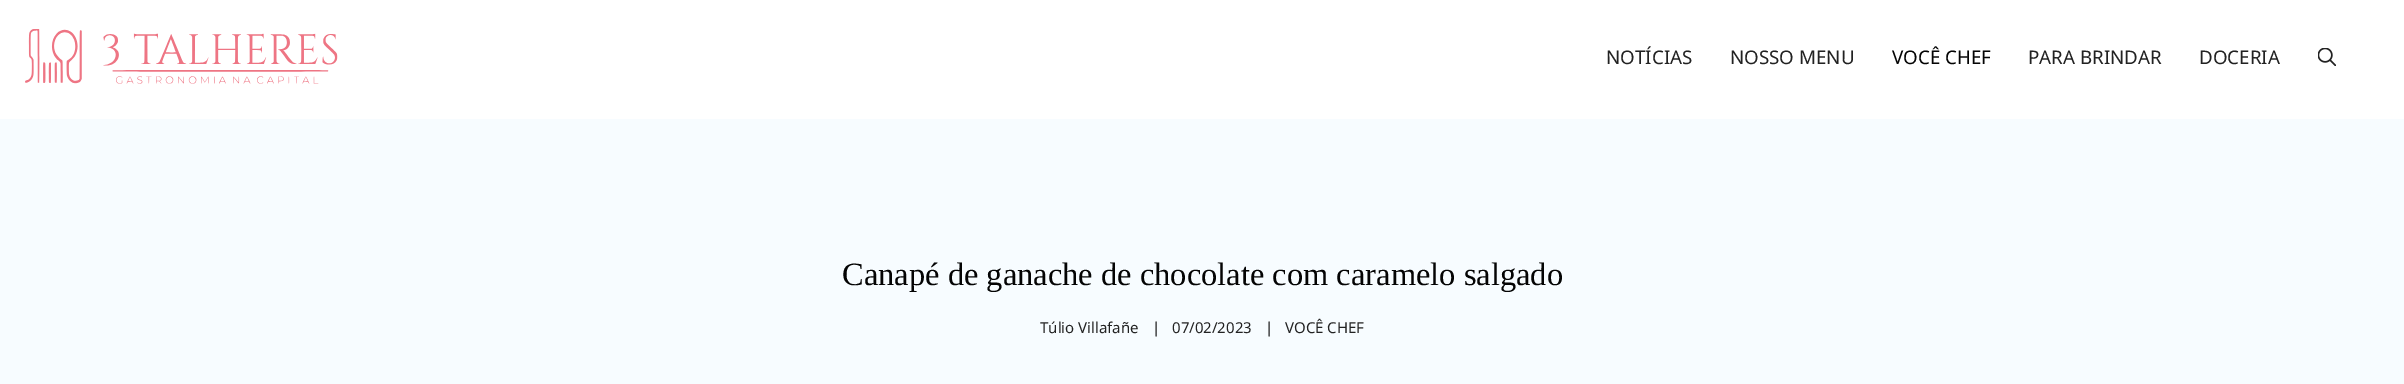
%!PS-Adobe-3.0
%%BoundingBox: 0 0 2404 384
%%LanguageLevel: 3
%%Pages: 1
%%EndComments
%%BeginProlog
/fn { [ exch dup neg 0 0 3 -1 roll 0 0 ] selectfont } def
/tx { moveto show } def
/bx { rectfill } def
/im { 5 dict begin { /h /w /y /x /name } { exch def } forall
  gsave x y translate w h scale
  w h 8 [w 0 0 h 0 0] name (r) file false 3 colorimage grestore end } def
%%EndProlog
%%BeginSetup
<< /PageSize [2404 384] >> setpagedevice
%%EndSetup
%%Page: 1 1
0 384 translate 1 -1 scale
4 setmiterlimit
1 setgray
0 0 2404 384 bx
(image0.raw) 25 29 313 55 im
/NotoSans-Regular 18.75 fn
0.133 setgray
(NOTÍCIAS) 1606 64 tx
(NOSSO MENU) 1730 64 tx
0.016 setgray
(VOCÊ CHEF) 1892 64 tx
0.133 setgray
(PARA BRINDAR) 2028 64 tx
(DOCERIA) 2199 64 tx
(image1.raw) 2318 48 18 18 im
0.969 0.988 1 setrgbcolor
0 119 2404 265 bx
/LiberationSerif-Regular 32.5 fn
0.016 setgray
(Canapé de ganache de chocolate com caramelo salgado) 842 285 tx
/NotoSans-Regular 15 fn
0.133 setgray
(Túlio Villafañe) 1040 333 tx
(|) 1152 333 tx
(07/02/2023) 1172 333 tx
(|) 1265 333 tx
(VOCÊ CHEF) 1285 333 tx
showpage
%%EOF
